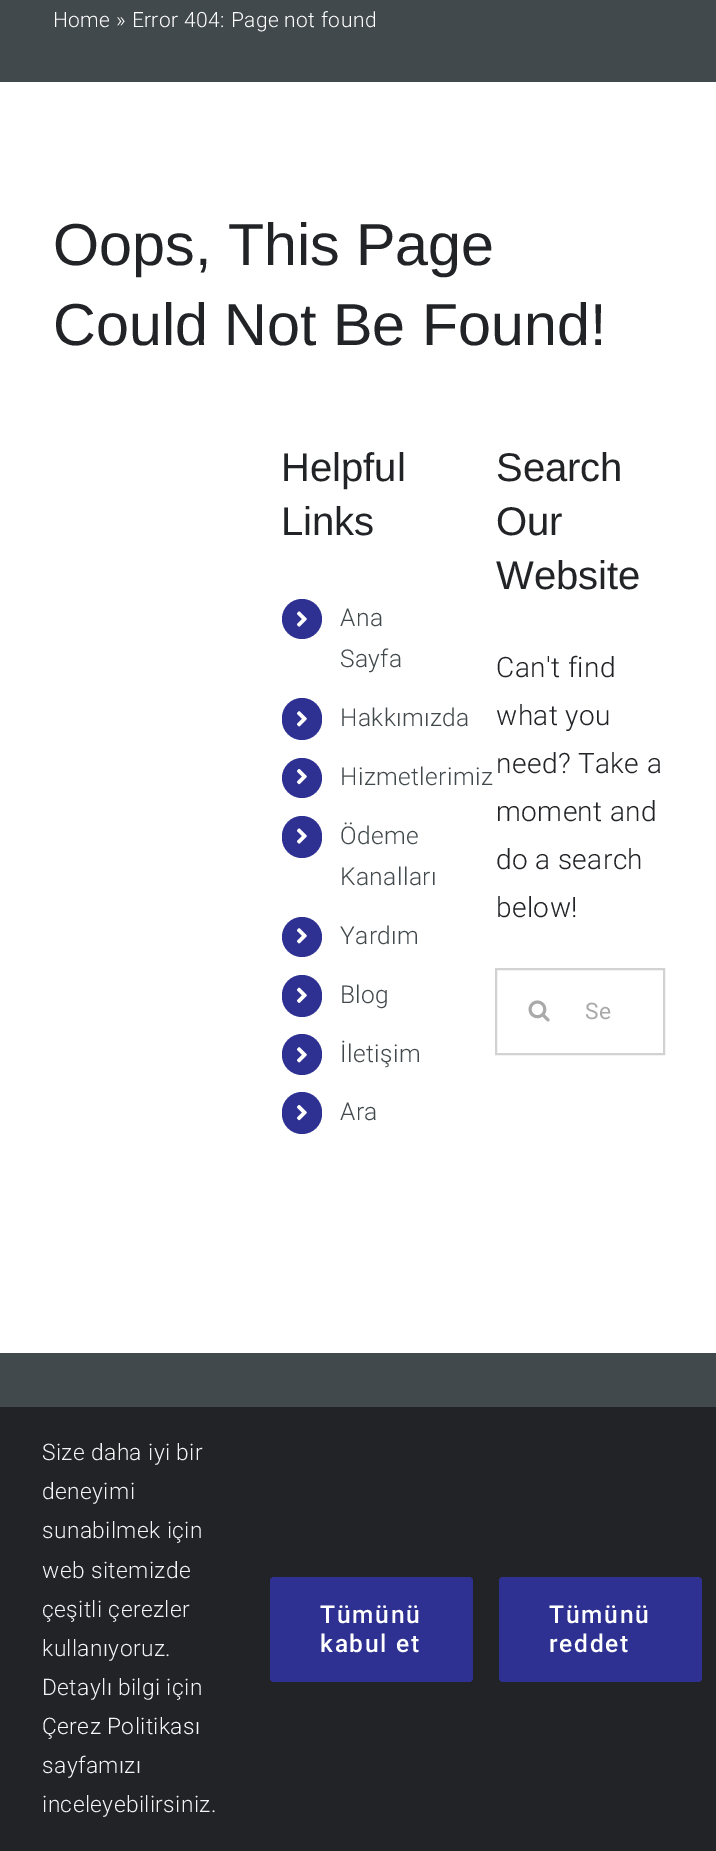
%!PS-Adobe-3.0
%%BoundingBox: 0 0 716 1851
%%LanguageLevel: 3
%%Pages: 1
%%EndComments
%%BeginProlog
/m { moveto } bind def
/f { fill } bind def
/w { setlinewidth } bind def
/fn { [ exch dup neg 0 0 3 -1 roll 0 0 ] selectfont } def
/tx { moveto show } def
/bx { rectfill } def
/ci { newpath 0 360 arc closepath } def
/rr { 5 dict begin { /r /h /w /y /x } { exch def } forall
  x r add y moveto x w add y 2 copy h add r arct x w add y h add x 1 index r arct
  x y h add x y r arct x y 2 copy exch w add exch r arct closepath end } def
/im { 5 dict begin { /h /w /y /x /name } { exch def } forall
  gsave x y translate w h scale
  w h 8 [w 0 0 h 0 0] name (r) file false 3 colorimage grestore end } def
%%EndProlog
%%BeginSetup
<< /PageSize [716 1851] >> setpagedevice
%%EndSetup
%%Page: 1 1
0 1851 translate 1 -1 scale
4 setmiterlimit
1 setgray
0 0 716 1851 bx
0.259 0.286 0.298 setrgbcolor
0 0 716 82 bx
/Roboto-Light 21 fn
1 setgray
53 27 m 0.4 0 (Home » Error 404: Page not found) ashow
/LiberationSans-Regular 59.25 fn
0.129 0.137 0.149 setrgbcolor
(Oops, This Page) 53 265 tx
(Could Not Be Found!) 53 345 tx
/LiberationSans-Regular 40 fn
(Helpful) 281 481 tx
(Links) 281 535 tx
0.18 0.192 0.573 setrgbcolor
302 619 20 ci f
(image0.raw) 297 611 10 16 im
/Roboto-Light 24.5 fn
0.259 0.286 0.298 setrgbcolor
340 626 m 0.4 0 (Ana) ashow
340 667 m 0.4 0 (Sayfa) ashow
0.18 0.192 0.573 setrgbcolor
282 698 40 42 20 rr f
(image1.raw) 297 711 10 16 im
0.259 0.286 0.298 setrgbcolor
340 726 m 0.4 0 (Hakkımızda) ashow
0.18 0.192 0.573 setrgbcolor
302 778 20 ci f
(image2.raw) 297 768 10 17 im
0.259 0.286 0.298 setrgbcolor
340 785 m 0.4 0 (Hizmetlerimiz) ashow
0.18 0.192 0.573 setrgbcolor
282 816 40 42 20 rr f
(image0.raw) 297 828 10 16 im
0.259 0.286 0.298 setrgbcolor
340 844 m 0.4 0 (Ödeme) ashow
340 885 m 0.4 0 (Kanalları) ashow
0.18 0.192 0.573 setrgbcolor
302 937 20 ci f
(image1.raw) 297 928 10 16 im
0.259 0.286 0.298 setrgbcolor
340 944 m 0.4 0 (Yardım) ashow
0.18 0.192 0.573 setrgbcolor
282 975 40 42 20 rr f
(image3.raw) 297 987 10 16 im
0.259 0.286 0.298 setrgbcolor
340 1003 m 0.4 0 (Blog) ashow
0.18 0.192 0.573 setrgbcolor
282 1034 40 41 20 rr f
(image1.raw) 297 1047 10 16 im
0.259 0.286 0.298 setrgbcolor
340 1062 m 0.4 0 (İletişim) ashow
0.18 0.192 0.573 setrgbcolor
282 1092 40 42 20 rr f
(image2.raw) 297 1104 10 17 im
0.259 0.286 0.298 setrgbcolor
340 1120 m 0.4 0 (Ara) ashow
/LiberationSans-Regular 40 fn
0.129 0.137 0.149 setrgbcolor
(Search) 496 481 tx
(Our) 496 535 tx
(Website) 496 589 tx
/Roboto-Light 28 fn
496 677 m 0.4 0 (Can't find) ashow
496 725 m 0.4 0 (what you) ashow
496 773 m 0.4 0 (need? Take a) ashow
496 821 m 0.4 0 (moment and) ashow
496 869 m 0.4 0 (do a search) ashow
496 917 m 0.4 0 (below!) ashow
0.824 setgray
2 w
496 969 168 85 rectstroke
(image4.raw) 528 1000 22 22 im
/Roboto-Regular 22.75 fn
0.667 0.663 0.663 setrgbcolor
(Se) 585 1019 tx
0.259 0.286 0.298 setrgbcolor
0 1353 716 54 bx
0.129 0.137 0.149 setrgbcolor
0 1407 716 444 bx
/Roboto-Light 22.75 fn
0.949 0.953 0.961 setrgbcolor
42 1460 m 0.4 0 (Size daha iyi bir) ashow
42 1499 m 0.4 0 (deneyimi) ashow
42 1538 m 0.4 0 (sunabilmek için) ashow
42 1578 m 0.4 0 (web sitemizde) ashow
42 1617 m 0.4 0 (çeşitli çerezler) ashow
42 1656 m 0.4 0 (kullanıyoruz.) ashow
42 1695 m 0.4 0 (Detaylı bilgi için) ashow
0.976 0.976 0.984 setrgbcolor
42 1734 m 0.4 0 (Çerez Politikası) ashow
0.949 0.953 0.961 setrgbcolor
42 1773 m 0.4 0 (sayfamızı) ashow
42 1812 m 0.4 0 (inceleyebilirsiniz.) ashow
0.18 0.192 0.573 setrgbcolor
270 1577 203 105 4 rr f
/Roboto-Medium 24.5 fn
1 setgray
320 1623 m 1.75 0 (Tümünü) ashow
320 1652 m 1.75 0 (kabul et) ashow
0.18 0.192 0.573 setrgbcolor
499 1577 203 105 4 rr f
1 setgray
549 1623 m 1.75 0 (Tümünü) ashow
549 1652 m 1.75 0 (reddet) ashow
showpage
%%EOF
